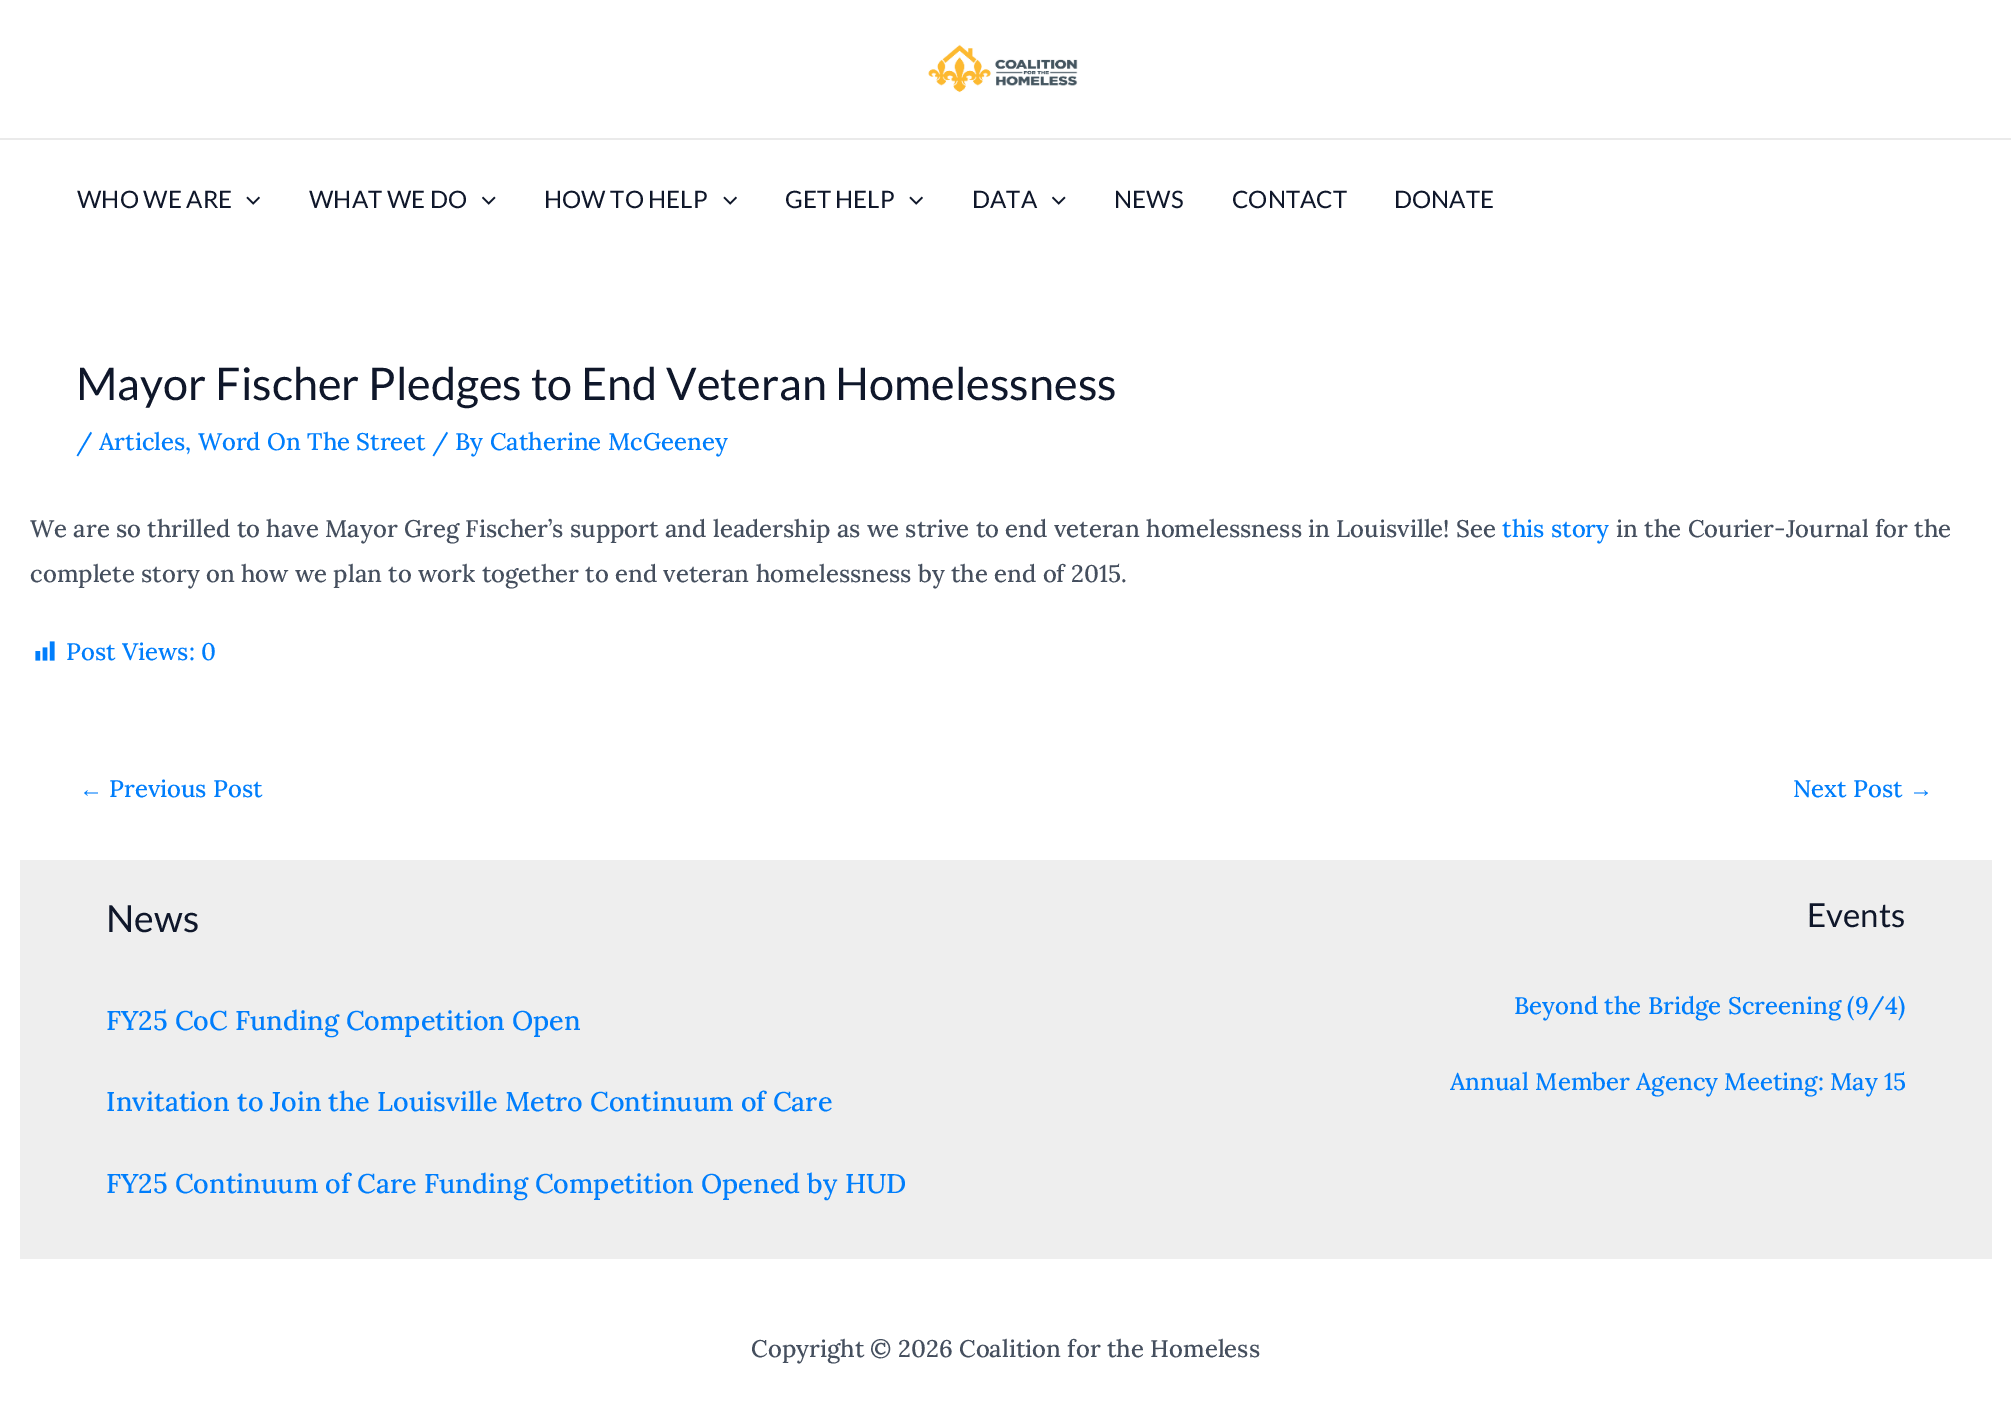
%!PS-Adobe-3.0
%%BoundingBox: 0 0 2011 1427
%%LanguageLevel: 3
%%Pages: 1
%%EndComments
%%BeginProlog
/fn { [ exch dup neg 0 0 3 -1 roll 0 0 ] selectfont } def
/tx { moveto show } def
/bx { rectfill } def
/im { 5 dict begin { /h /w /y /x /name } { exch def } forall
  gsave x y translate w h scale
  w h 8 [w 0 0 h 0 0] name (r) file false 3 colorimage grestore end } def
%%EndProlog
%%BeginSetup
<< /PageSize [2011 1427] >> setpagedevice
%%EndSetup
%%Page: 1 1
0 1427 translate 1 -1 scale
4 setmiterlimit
1 setgray
0 0 2011 1427 bx
0.918 setgray
0 138 2011 2 bx
(image0.raw) 928 44 150 49 im
/Lato-Regular 24 fn
0.059 0.09 0.165 setrgbcolor
(WHO WE ARE) 77 208 tx
(image1.raw) 246 196 14 9 im
(WHAT WE DO) 309 208 tx
(image2.raw) 482 196 14 9 im
(HOW TO HELP) 544 208 tx
(image1.raw) 723 196 14 9 im
(GET HELP) 785 208 tx
(image1.raw) 909 196 14 9 im
(DATA) 972 208 tx
(image2.raw) 1052 196 14 9 im
(NEWS) 1114 208 tx
(CONTACT) 1232 208 tx
(DONATE) 1394 208 tx
/Lato-Regular 45 fn
(Mayor Fischer Pledges to End Veteran Homelessness) 76 400 tx
/Lora-Medium 24 fn
0 0.494 0.988 setrgbcolor
(/ Articles, Word On The Street / By Catherine McGeeney) 76 450 tx
0.271 0.31 0.369 setrgbcolor
(We are so thrilled to have Mayor Greg Fischer’s support and leadership as we strive to end veteran homelessness in Louisville! See) 30 537 tx
0 0.494 0.988 setrgbcolor
(this story) 1502 537 tx
0.271 0.31 0.369 setrgbcolor
(in the Courier-Journal for the) 1616 537 tx
(complete story on how we plan to work together to end veteran homelessness by the end of 2015.) 30 582 tx
(image3.raw) 35 641 20 20 im
0 0.494 0.988 setrgbcolor
(Post Views: 0) 66 660 tx
/LiberationSerif-Regular 24 fn
(←) 79 797 tx
/Lora-Medium 24 fn
(Previous Post) 109 797 tx
(Next Post) 1793 797 tx
/LiberationSerif-Regular 24 fn
(→) 1909 797 tx
0.933 setgray
20 860 1972 399 bx
/Lato-Regular 37.5 fn
0.059 0.09 0.165 setrgbcolor
(News) 106 932 tx
/Lora-Medium 27 fn
0 0.494 0.988 setrgbcolor
(FY25 CoC Funding Competition Open) 106 1030 tx
(Invitation to Join the Louisville Metro Continuum of Care) 106 1111 tx
(FY25 Continuum of Care Funding Competition Opened by HUD) 106 1193 tx
/Lato-Regular 33 fn
0.059 0.09 0.165 setrgbcolor
(Events) 1807 927 tx
/Lora-Medium 24 fn
0 0.494 0.988 setrgbcolor
(Beyond the Bridge Screening \(9/4\)) 1514 1014 tx
(Annual Member Agency Meeting: May 15) 1450 1090 tx
0.271 0.31 0.369 setrgbcolor
(Copyright © 2026 Coalition for the Homeless) 751 1357 tx
showpage
%%EOF
